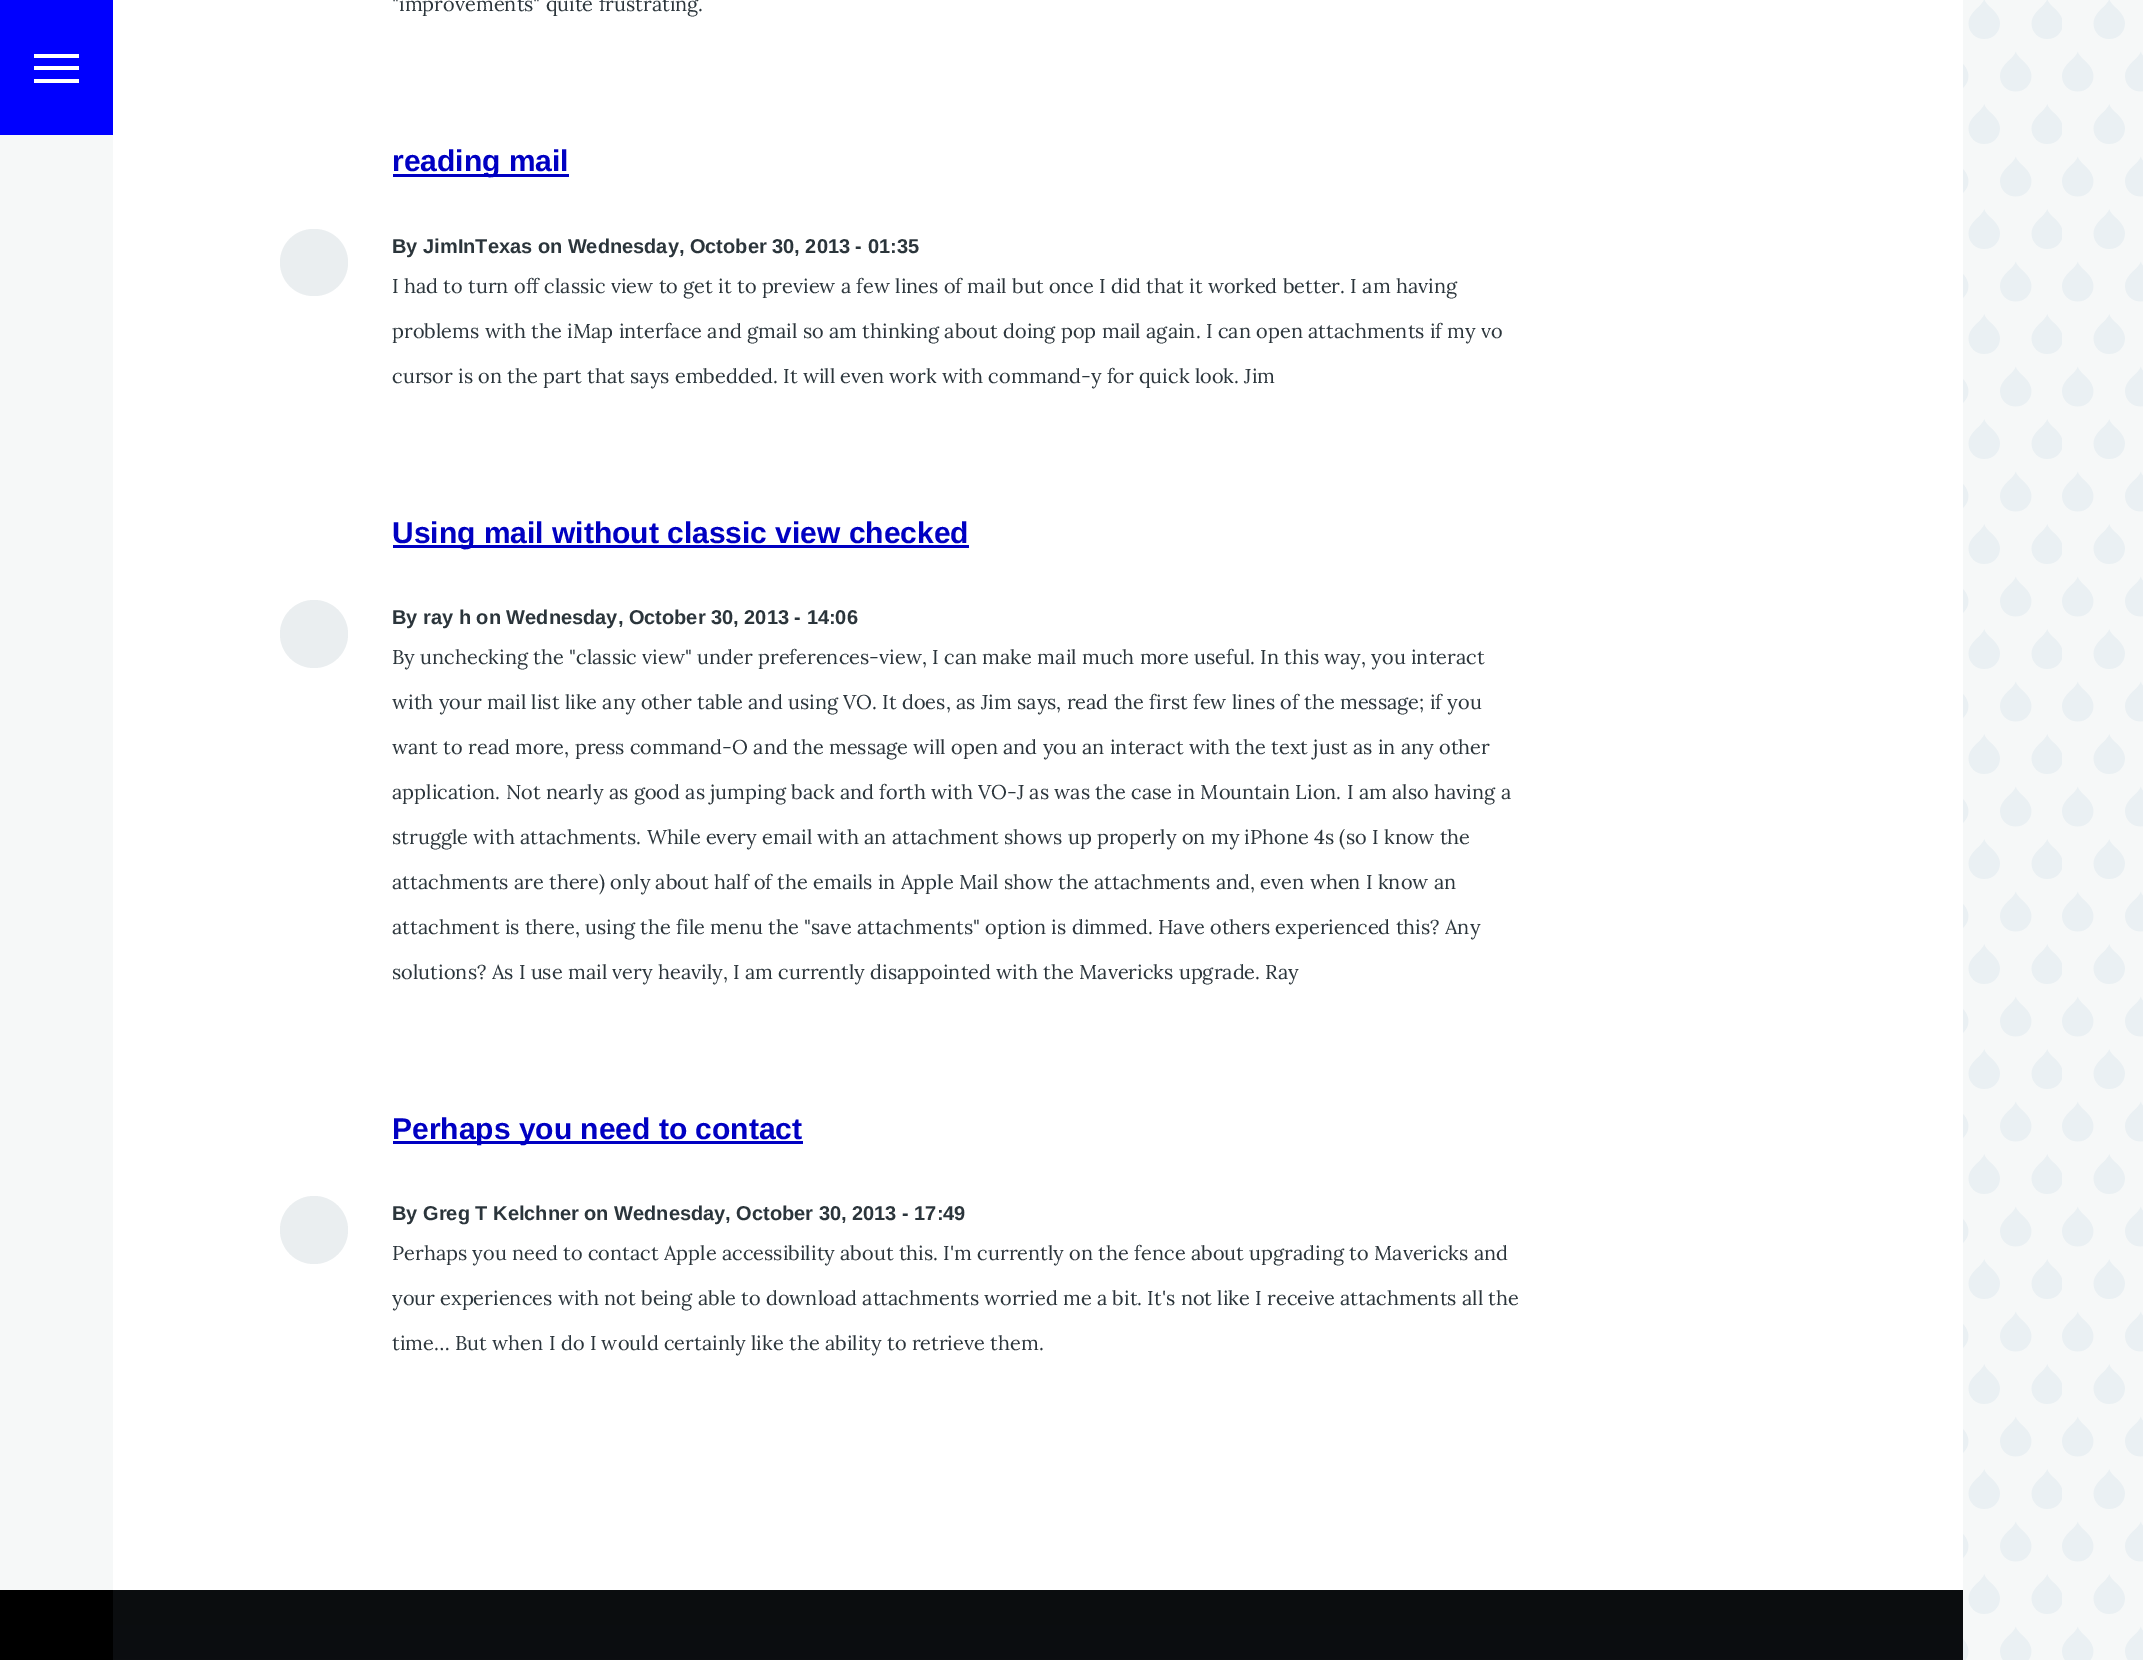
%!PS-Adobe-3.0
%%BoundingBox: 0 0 2143 1660
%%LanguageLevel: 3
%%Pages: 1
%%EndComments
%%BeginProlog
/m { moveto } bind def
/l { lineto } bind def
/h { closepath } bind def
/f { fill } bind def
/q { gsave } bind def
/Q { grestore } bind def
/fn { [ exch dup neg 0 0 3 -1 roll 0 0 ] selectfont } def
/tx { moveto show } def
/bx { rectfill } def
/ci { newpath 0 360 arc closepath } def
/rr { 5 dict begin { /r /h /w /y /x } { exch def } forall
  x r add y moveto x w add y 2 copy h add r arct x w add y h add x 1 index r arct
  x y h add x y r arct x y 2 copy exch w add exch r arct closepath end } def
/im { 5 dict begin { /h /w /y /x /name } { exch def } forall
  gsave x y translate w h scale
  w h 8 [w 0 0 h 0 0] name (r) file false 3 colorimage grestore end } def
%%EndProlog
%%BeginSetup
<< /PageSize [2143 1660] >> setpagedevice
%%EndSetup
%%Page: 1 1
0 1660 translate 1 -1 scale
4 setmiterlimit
0.965 0.973 0.973 setrgbcolor
0 0 2143 1660 bx
(image0.raw) 1963 0 180 1660 im
1 setgray
113 0 1850 1590 bx
0 0 1 setrgbcolor
0 0 113 135 bx
1 setgray
34 54 45 4 bx
34 66 45 4 bx
34 79 45 4 bx
/Lora-Regular 20 fn
0.169 0.208 0.231 setrgbcolor
("improvements" quite frustrating.) 392 11 tx
0 0 0.761 setrgbcolor
393 174 176 3 bx
/LiberationSans-Bold 30 fn
(reading mail) 392 171 tx
0.918 0.933 0.941 setrgbcolor
280 229 68 67 33.5 rr f
/LiberationSans-Bold 20 fn
0.169 0.208 0.231 setrgbcolor
(By JimInTexas on Wednesday, October 30, 2013 - 01:35) 392 253 tx
/Lora-Regular 20 fn
(I had to turn off classic view to get it to preview a few lines of mail but once I did that it worked better. I am having) 392 293 tx
(problems with the iMap interface and gmail so am thinking about doing pop mail again. I can open attachments if my vo) 392 338 tx
(cursor is on the part that says embedded. It will even work with command-y for quick look. Jim) 392 383 tx
0 0 0.761 setrgbcolor
393 545 576 3 bx
/LiberationSans-Bold 30 fn
(Using mail without classic view checked) 392 543 tx
0.918 0.933 0.941 setrgbcolor
314 634 34 ci f
/LiberationSans-Bold 20 fn
0.169 0.208 0.231 setrgbcolor
(By ray h on Wednesday, October 30, 2013 - 14:06) 392 624 tx
/Lora-Regular 20 fn
(By unchecking the "classic view" under preferences-view, I can make mail much more useful. In this way, you interact) 392 664 tx
(with your mail list like any other table and using VO. It does, as Jim says, read the first few lines of the message; if you) 392 709 tx
(want to read more, press command-O and the message will open and you an interact with the text just as in any other) 392 754 tx
(application. Not nearly as good as jumping back and forth with VO-J as was the case in Mountain Lion. I am also having a) 392 799 tx
(struggle with attachments. While every email with an attachment shows up properly on my iPhone 4s \(so I know the) 392 844 tx
(attachments are there\) only about half of the emails in Apple Mail show the attachments and, even when I know an) 392 889 tx
(attachment is there, using the file menu the "save attachments" option is dimmed. Have others experienced this? Any) 392 934 tx
(solutions? As I use mail very heavily, I am currently disappointed with the Mavericks upgrade. Ray) 392 979 tx
0 0 0.761 setrgbcolor
393 1141 410 3 bx
/LiberationSans-Bold 30 fn
(Perhaps you need to contact) 392 1139 tx
0.918 0.933 0.941 setrgbcolor
314 1230 34 ci f
/LiberationSans-Bold 20 fn
0.169 0.208 0.231 setrgbcolor
(By Greg T Kelchner on Wednesday, October 30, 2013 - 17:49) 392 1220 tx
/Lora-Regular 20 fn
(Perhaps you need to contact Apple accessibility about this. I'm currently on the fence about upgrading to Mavericks and) 392 1260 tx
(your experiences with not being able to download attachments worried me a bit. It's not like I receive attachments all the) 392 1305 tx
(time… But when I do I would certainly like the ability to retrieve them.) 392 1350 tx
q 113 1590 m 1963 1590 l 1963 1660 l 113 1660 l h clip newpath
<< /ShadingType 2 /ColorSpace /DeviceRGB /Coords [1038 1590 1038 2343] /Extend [true true] /Function << /FunctionType 2 /Domain [0 1] /C0 [0.043 0.051 0.059] /C1 [0.094 0.114 0.125] /N 1 >> >> shfill Q
0 setgray
0 1590 113 70 bx
showpage
%%EOF
